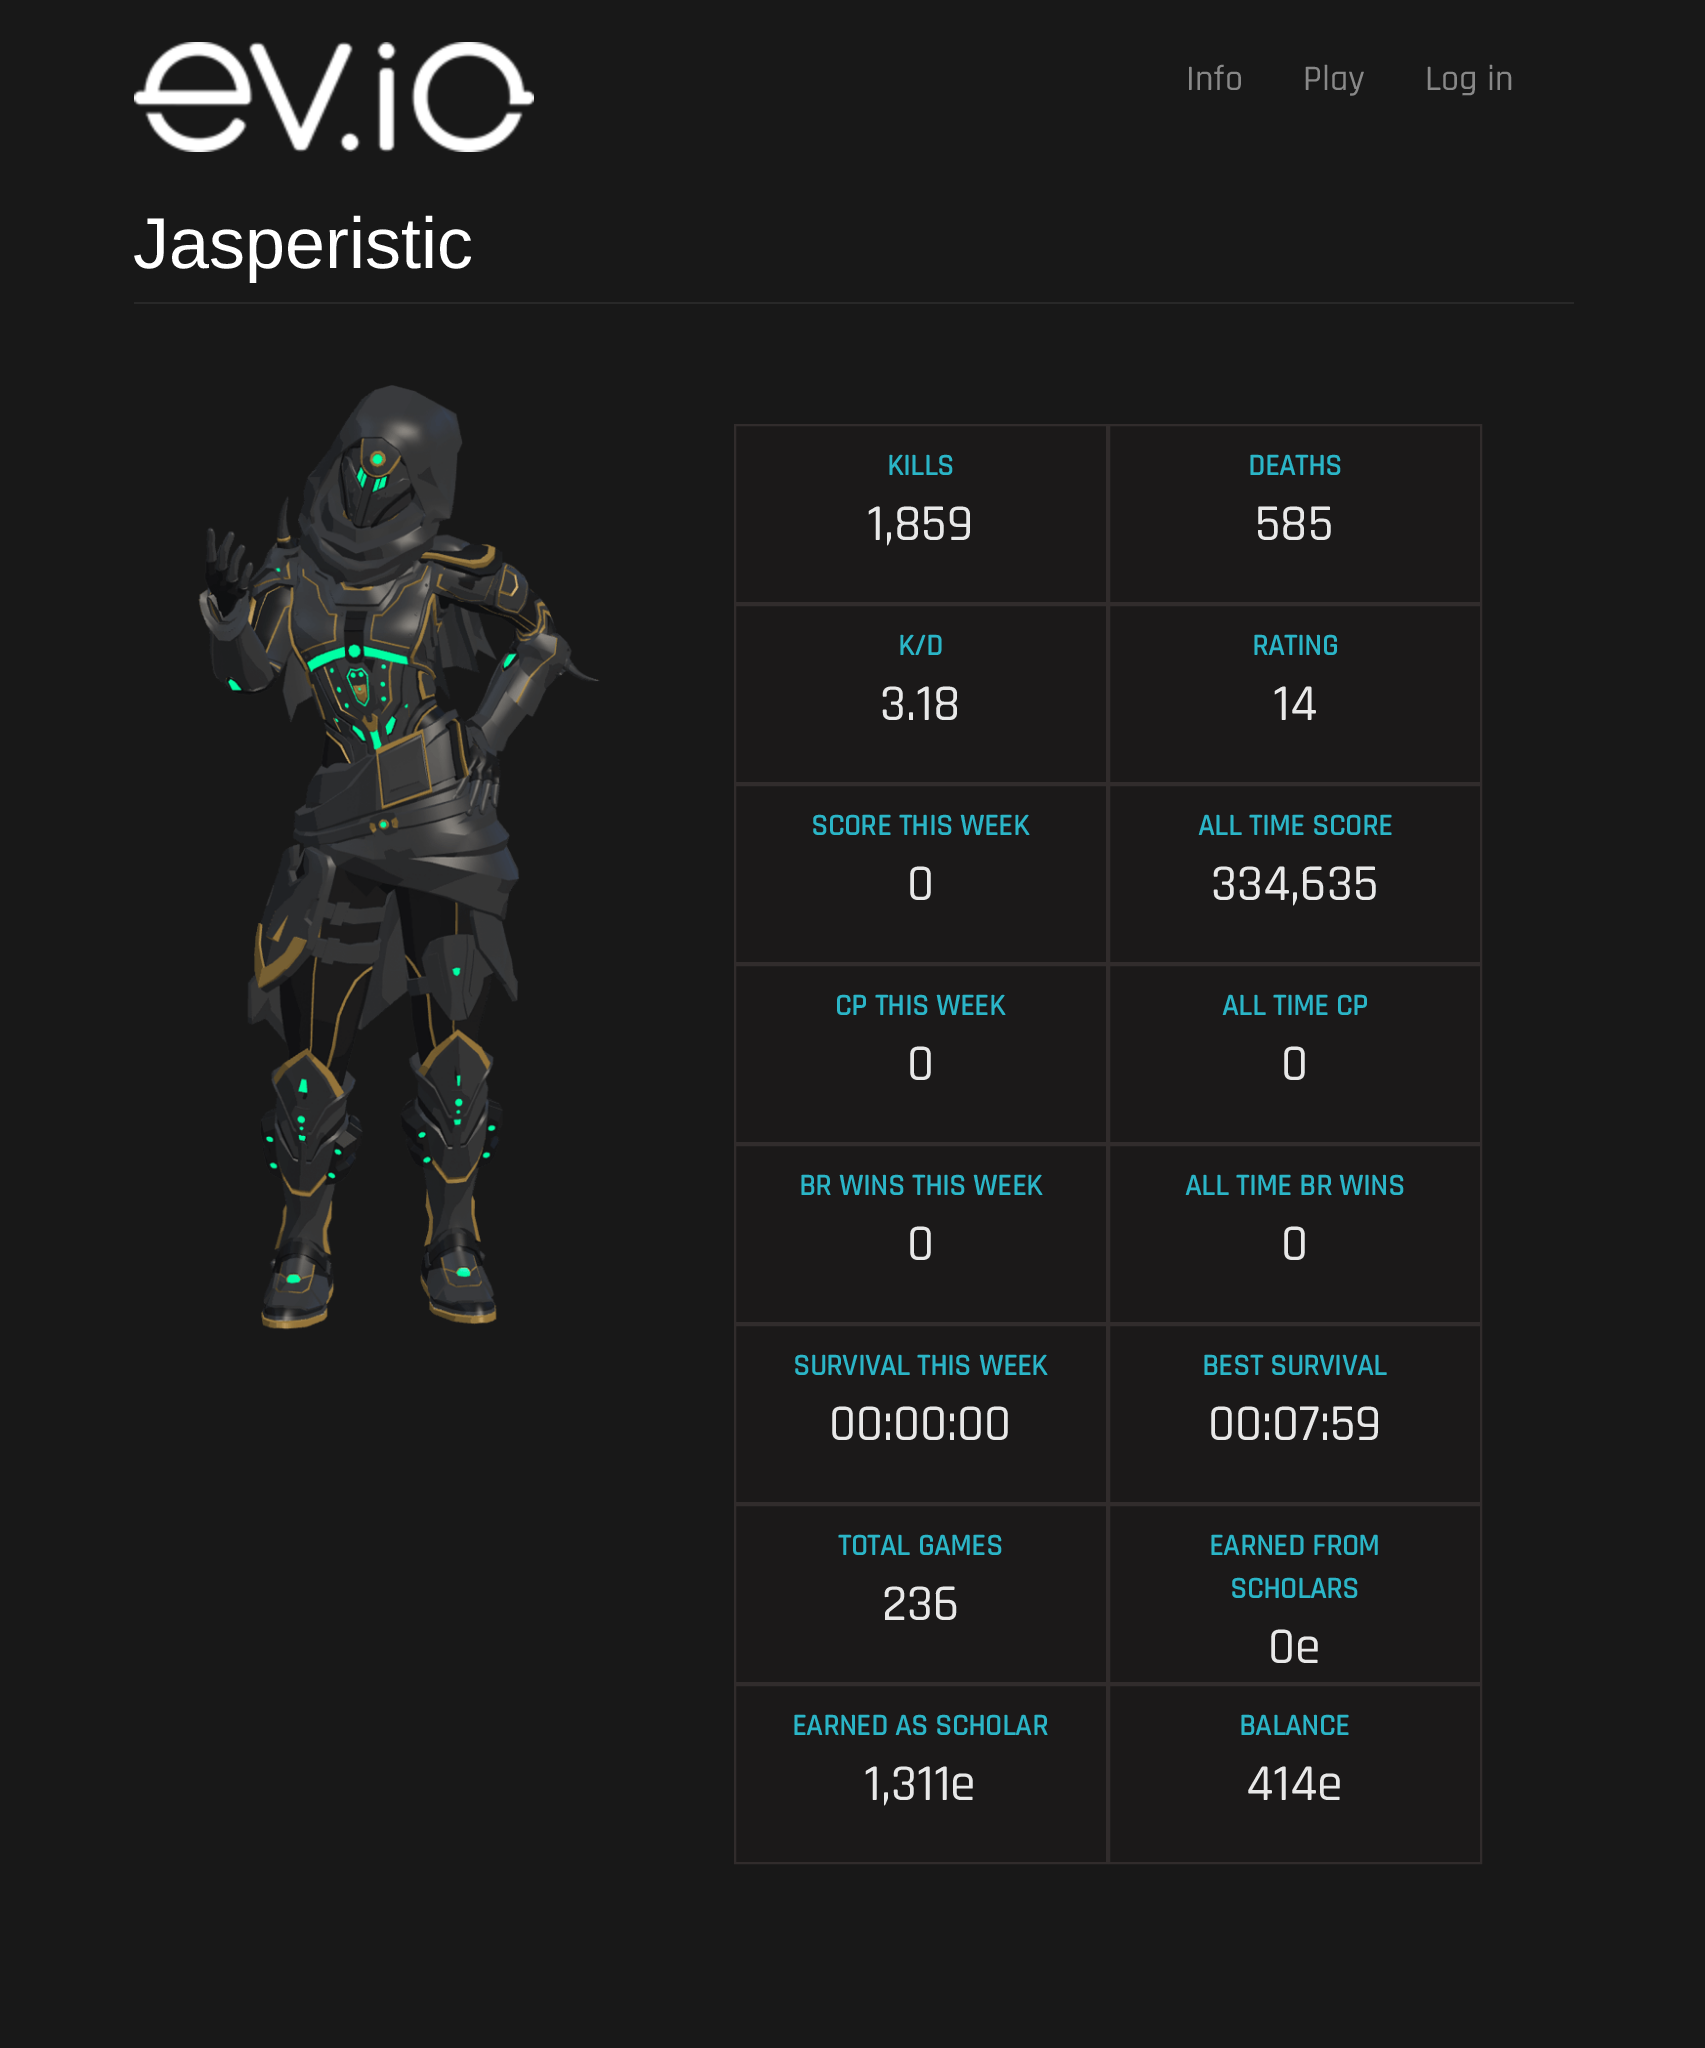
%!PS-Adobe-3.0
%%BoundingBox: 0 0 1705 2048
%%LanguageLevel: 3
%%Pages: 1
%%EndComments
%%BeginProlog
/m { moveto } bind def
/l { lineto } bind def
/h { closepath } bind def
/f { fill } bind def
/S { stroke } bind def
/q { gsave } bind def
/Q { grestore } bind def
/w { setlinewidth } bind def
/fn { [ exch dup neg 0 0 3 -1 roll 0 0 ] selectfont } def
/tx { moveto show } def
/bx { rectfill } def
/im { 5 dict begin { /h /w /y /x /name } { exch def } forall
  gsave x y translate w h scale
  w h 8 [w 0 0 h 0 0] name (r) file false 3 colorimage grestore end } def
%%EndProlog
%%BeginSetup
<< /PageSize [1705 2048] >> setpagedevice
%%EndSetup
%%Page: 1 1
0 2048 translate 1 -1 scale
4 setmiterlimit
0.094 setgray
0 0 1705 2048 bx
(image0.raw) 134 42 400 110 im
/Rajdhani-Medium 36 fn
0.533 setgray
(Info) 1186 90 tx
(Play) 1303 90 tx
(Log in) 1425 90 tx
0.157 setgray
134 302 1440 2 bx
/LiberationSans-Regular 72 fn
1 setgray
(Jasperistic) 133 268 tx
(image1.raw) 198 385 402 945 im
0.106 0.098 0.098 setrgbcolor
735 425 m 1107 425 l 1107 603 l 735 603 l h q f Q
0.192 0.173 0.173 setrgbcolor
2 w
S
/Rajdhani-Bold 30 fn
0.169 0.71 0.78 setrgbcolor
(KILLS) 887 475 tx
/Rajdhani-Medium 52 fn
0.91 setgray
(1,859) 867 540 tx
0.106 0.098 0.098 setrgbcolor
1109 425 m 1481 425 l 1481 603 l 1109 603 l h q f Q
0.192 0.173 0.173 setrgbcolor
S
/Rajdhani-Bold 30 fn
0.169 0.71 0.78 setrgbcolor
(DEATHS) 1248 475 tx
/Rajdhani-Medium 52 fn
0.91 setgray
(585) 1255 540 tx
0.106 0.098 0.098 setrgbcolor
735 605 m 1107 605 l 1107 783 l 735 783 l h q f Q
0.192 0.173 0.173 setrgbcolor
S
/Rajdhani-Bold 30 fn
0.169 0.71 0.78 setrgbcolor
(K/D) 898 655 tx
/Rajdhani-Medium 52 fn
0.91 setgray
(3.18) 880 720 tx
0.106 0.098 0.098 setrgbcolor
1109 605 m 1481 605 l 1481 783 l 1109 783 l h q f Q
0.192 0.173 0.173 setrgbcolor
S
/Rajdhani-Bold 30 fn
0.169 0.71 0.78 setrgbcolor
(RATING) 1252 655 tx
/Rajdhani-Medium 52 fn
0.91 setgray
(14) 1273 720 tx
0.106 0.098 0.098 setrgbcolor
735 785 m 1107 785 l 1107 963 l 735 963 l h q f Q
0.192 0.173 0.173 setrgbcolor
S
/Rajdhani-Bold 30 fn
0.169 0.71 0.78 setrgbcolor
(SCORE THIS WEEK) 811 835 tx
/Rajdhani-Medium 52 fn
0.91 setgray
(0) 907 900 tx
0.106 0.098 0.098 setrgbcolor
1109 785 m 1481 785 l 1481 963 l 1109 963 l h q f Q
0.192 0.173 0.173 setrgbcolor
S
/Rajdhani-Bold 30 fn
0.169 0.71 0.78 setrgbcolor
(ALL TIME SCORE) 1198 835 tx
/Rajdhani-Medium 52 fn
0.91 setgray
(334,635) 1211 900 tx
0.106 0.098 0.098 setrgbcolor
735 965 m 1107 965 l 1107 1143 l 735 1143 l h q f Q
0.192 0.173 0.173 setrgbcolor
S
/Rajdhani-Bold 30 fn
0.169 0.71 0.78 setrgbcolor
(CP THIS WEEK) 835 1015 tx
/Rajdhani-Medium 52 fn
0.91 setgray
(0) 907 1080 tx
0.106 0.098 0.098 setrgbcolor
1109 965 m 1481 965 l 1481 1143 l 1109 1143 l h q f Q
0.192 0.173 0.173 setrgbcolor
S
/Rajdhani-Bold 30 fn
0.169 0.71 0.78 setrgbcolor
(ALL TIME CP) 1222 1015 tx
/Rajdhani-Medium 52 fn
0.91 setgray
(0) 1281 1080 tx
0.106 0.098 0.098 setrgbcolor
735 1145 m 1107 1145 l 1107 1323 l 735 1323 l h q f Q
0.192 0.173 0.173 setrgbcolor
S
/Rajdhani-Bold 30 fn
0.169 0.71 0.78 setrgbcolor
(BR WINS THIS WEEK) 799 1195 tx
/Rajdhani-Medium 52 fn
0.91 setgray
(0) 907 1260 tx
0.106 0.098 0.098 setrgbcolor
1109 1145 m 1481 1145 l 1481 1323 l 1109 1323 l h q f Q
0.192 0.173 0.173 setrgbcolor
S
/Rajdhani-Bold 30 fn
0.169 0.71 0.78 setrgbcolor
(ALL TIME BR WINS) 1185 1195 tx
/Rajdhani-Medium 52 fn
0.91 setgray
(0) 1281 1260 tx
0.106 0.098 0.098 setrgbcolor
735 1325 m 1107 1325 l 1107 1503 l 735 1503 l h q f Q
0.192 0.173 0.173 setrgbcolor
S
/Rajdhani-Bold 30 fn
0.169 0.71 0.78 setrgbcolor
(SURVIVAL THIS WEEK) 793 1375 tx
/Rajdhani-Medium 52 fn
0.91 setgray
(00:00:00) 829 1440 tx
0.106 0.098 0.098 setrgbcolor
1109 1325 m 1481 1325 l 1481 1503 l 1109 1503 l h q f Q
0.192 0.173 0.173 setrgbcolor
S
/Rajdhani-Bold 30 fn
0.169 0.71 0.78 setrgbcolor
(BEST SURVIVAL) 1202 1375 tx
/Rajdhani-Medium 52 fn
0.91 setgray
(00:07:59) 1208 1440 tx
0.106 0.098 0.098 setrgbcolor
735 1505 m 1107 1505 l 1107 1683 l 735 1683 l h q f Q
0.192 0.173 0.173 setrgbcolor
S
/Rajdhani-Bold 30 fn
0.169 0.71 0.78 setrgbcolor
(TOTAL GAMES) 838 1555 tx
/Rajdhani-Medium 52 fn
0.91 setgray
(236) 882 1620 tx
0.106 0.098 0.098 setrgbcolor
1109 1505 m 1481 1505 l 1481 1683 l 1109 1683 l h q f Q
0.192 0.173 0.173 setrgbcolor
S
/Rajdhani-Bold 30 fn
0.169 0.71 0.78 setrgbcolor
(EARNED FROM) 1209 1555 tx
(SCHOLARS) 1230 1598 tx
/Rajdhani-Medium 52 fn
0.91 setgray
(0e) 1268 1663 tx
0.106 0.098 0.098 setrgbcolor
735 1685 m 1107 1685 l 1107 1863 l 735 1863 l h q f Q
0.192 0.173 0.173 setrgbcolor
S
/Rajdhani-Bold 30 fn
0.169 0.71 0.78 setrgbcolor
(EARNED AS SCHOLAR) 792 1735 tx
/Rajdhani-Medium 52 fn
0.91 setgray
(1,311e) 864 1800 tx
0.106 0.098 0.098 setrgbcolor
1109 1685 m 1481 1685 l 1481 1863 l 1109 1863 l h q f Q
0.192 0.173 0.173 setrgbcolor
S
/Rajdhani-Bold 30 fn
0.169 0.71 0.78 setrgbcolor
(BALANCE) 1239 1735 tx
/Rajdhani-Medium 52 fn
0.91 setgray
(414e) 1246 1800 tx
showpage
%%EOF
